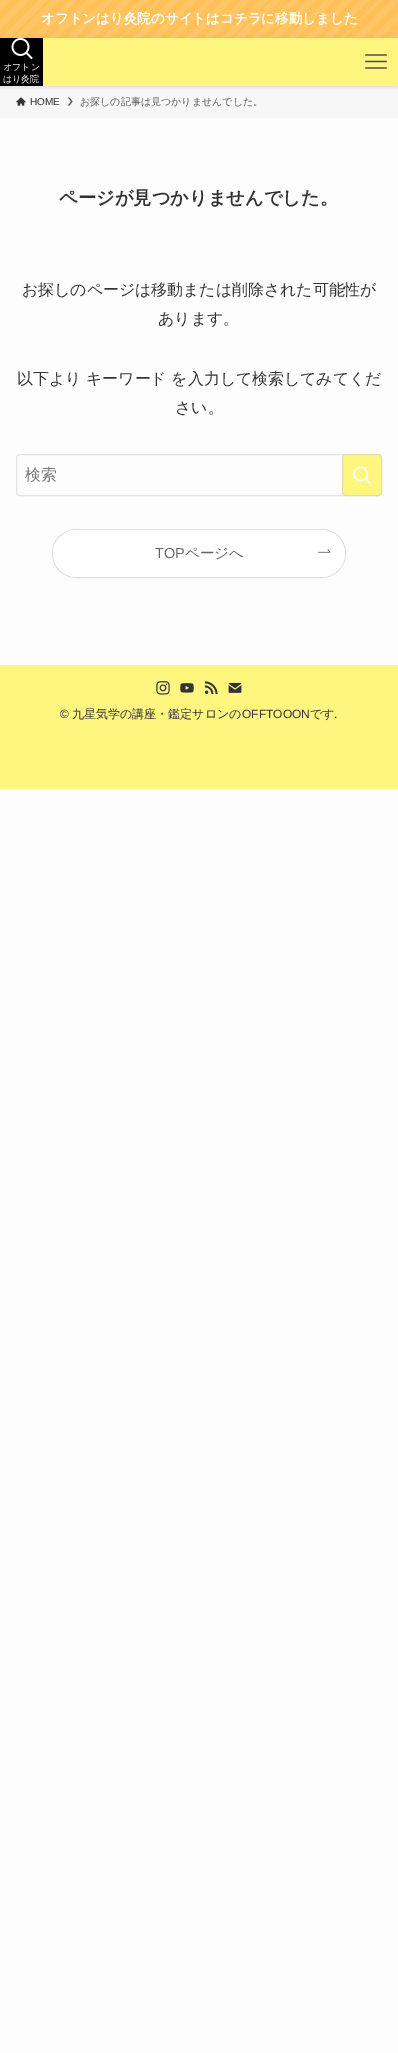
%!PS-Adobe-3.0
%%BoundingBox: 0 0 398 2053
%%LanguageLevel: 3
%%Pages: 1
%%EndComments
%%BeginProlog
/m { moveto } bind def
/l { lineto } bind def
/h { closepath } bind def
/f { fill } bind def
/S { stroke } bind def
/q { gsave } bind def
/Q { grestore } bind def
/fn { [ exch dup neg 0 0 3 -1 roll 0 0 ] selectfont } def
/tx { moveto show } def
/bx { rectfill } def
/al { dup .setfillconstantalpha .setstrokeconstantalpha } def
/rr { 5 dict begin { /r /h /w /y /x } { exch def } forall
  x r add y moveto x w add y 2 copy h add r arct x w add y h add x 1 index r arct
  x y h add x y r arct x y 2 copy exch w add exch r arct closepath end } def
/sh { 12 dict begin { /a /b /q /h /w /y /x } { exch def } forall gsave /was 0 def
  9 -2 -9 { dup b mul 4 div /e exch def 1 sub .425 mul 2.718 exch exp 1 add a .99 .min exch div /now exch def
    1 1 now sub 1 was sub div sub al /was now def
    w h .min e 2 mul add 0 gt { x e sub y e sub w e 2 mul add h e 2 mul add
      q e add b .6 mul add w h .min 2 div e add .min 0 .max rr fill } if } for grestore end } def
/im { 5 dict begin { /h /w /y /x /name } { exch def } forall
  gsave x y translate w h scale
  w h 8 [w 0 0 h 0 0] name (r) file false 3 colorimage grestore end } def
%%EndProlog
%%BeginSetup
<< /PageSize [398 2053] /PageUsesTransparency true >> setpagedevice
%%EndSetup
%%Page: 1 1
0 .pushpdf14devicefilter
0 2053 translate 1 -1 scale
4 setmiterlimit
0.992 setgray
0 0 398 2053 bx
q 0 0 m 398 0 l 398 38 l 0 38 l h clip newpath
<< /ShadingType 2 /ColorSpace /DeviceRGB /Coords [308 128 87 -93] /Extend [true true] /Function << /FunctionType 3 /Domain [0 1] /Functions [<< /FunctionType 2 /Domain [0 1] /C0 [1 0.776 0.408] /C1 [1 0.776 0.408] /N 1 >> << /FunctionType 2 /Domain [0 1] /C0 [1 0.753 0.341] /C1 [1 0.753 0.341] /N 1 >> << /FunctionType 2 /Domain [0 1] /C0 [1 0.776 0.408] /C1 [1 0.776 0.408] /N 1 >> << /FunctionType 2 /Domain [0 1] /C0 [1 0.753 0.341] /C1 [1 0.753 0.341] /N 1 >> << /FunctionType 2 /Domain [0 1] /C0 [1 0.776 0.408] /C1 [1 0.776 0.408] /N 1 >> << /FunctionType 2 /Domain [0 1] /C0 [1 0.753 0.341] /C1 [1 0.753 0.341] /N 1 >> << /FunctionType 2 /Domain [0 1] /C0 [1 0.776 0.408] /C1 [1 0.776 0.408] /N 1 >> << /FunctionType 2 /Domain [0 1] /C0 [1 0.753 0.341] /C1 [1 0.753 0.341] /N 1 >> << /FunctionType 2 /Domain [0 1] /C0 [1 0.776 0.408] /C1 [1 0.776 0.408] /N 1 >> << /FunctionType 2 /Domain [0 1] /C0 [1 0.753 0.341] /C1 [1 0.753 0.341] /N 1 >> << /FunctionType 2 /Domain [0 1] /C0 [1 0.776 0.408] /C1 [1 0.776 0.408] /N 1 >> << /FunctionType 2 /Domain [0 1] /C0 [1 0.753 0.341] /C1 [1 0.753 0.341] /N 1 >> << /FunctionType 2 /Domain [0 1] /C0 [1 0.776 0.408] /C1 [1 0.776 0.408] /N 1 >> << /FunctionType 2 /Domain [0 1] /C0 [1 0.753 0.341] /C1 [1 0.753 0.341] /N 1 >> << /FunctionType 2 /Domain [0 1] /C0 [1 0.776 0.408] /C1 [1 0.776 0.408] /N 1 >> << /FunctionType 2 /Domain [0 1] /C0 [1 0.753 0.341] /C1 [1 0.753 0.341] /N 1 >> << /FunctionType 2 /Domain [0 1] /C0 [1 0.776 0.408] /C1 [1 0.776 0.408] /N 1 >> << /FunctionType 2 /Domain [0 1] /C0 [1 0.753 0.341] /C1 [1 0.753 0.341] /N 1 >> << /FunctionType 2 /Domain [0 1] /C0 [1 0.776 0.408] /C1 [1 0.776 0.408] /N 1 >> << /FunctionType 2 /Domain [0 1] /C0 [1 0.753 0.341] /C1 [1 0.753 0.341] /N 1 >> << /FunctionType 2 /Domain [0 1] /C0 [1 0.776 0.408] /C1 [1 0.776 0.408] /N 1 >> << /FunctionType 2 /Domain [0 1] /C0 [1 0.753 0.341] /C1 [1 0.753 0.341] /N 1 >> << /FunctionType 2 /Domain [0 1] /C0 [1 0.776 0.408] /C1 [1 0.776 0.408] /N 1 >> << /FunctionType 2 /Domain [0 1] /C0 [1 0.753 0.341] /C1 [1 0.753 0.341] /N 1 >> << /FunctionType 2 /Domain [0 1] /C0 [1 0.776 0.408] /C1 [1 0.776 0.408] /N 1 >> << /FunctionType 2 /Domain [0 1] /C0 [1 0.753 0.341] /C1 [1 0.753 0.341] /N 1 >> << /FunctionType 2 /Domain [0 1] /C0 [1 0.776 0.408] /C1 [1 0.776 0.408] /N 1 >> << /FunctionType 2 /Domain [0 1] /C0 [1 0.753 0.341] /C1 [1 0.753 0.341] /N 1 >> << /FunctionType 2 /Domain [0 1] /C0 [1 0.776 0.408] /C1 [1 0.776 0.408] /N 1 >> << /FunctionType 2 /Domain [0 1] /C0 [1 0.753 0.341] /C1 [1 0.753 0.341] /N 1 >> << /FunctionType 2 /Domain [0 1] /C0 [1 0.776 0.408] /C1 [1 0.776 0.408] /N 1 >> << /FunctionType 2 /Domain [0 1] /C0 [1 0.753 0.341] /C1 [1 0.753 0.341] /N 1 >> << /FunctionType 2 /Domain [0 1] /C0 [1 0.776 0.408] /C1 [1 0.776 0.408] /N 1 >> << /FunctionType 2 /Domain [0 1] /C0 [1 0.753 0.341] /C1 [1 0.753 0.341] /N 1 >> << /FunctionType 2 /Domain [0 1] /C0 [1 0.776 0.408] /C1 [1 0.776 0.408] /N 1 >> << /FunctionType 2 /Domain [0 1] /C0 [1 0.753 0.341] /C1 [1 0.753 0.341] /N 1 >> << /FunctionType 2 /Domain [0 1] /C0 [1 0.776 0.408] /C1 [1 0.776 0.408] /N 1 >> << /FunctionType 2 /Domain [0 1] /C0 [1 0.753 0.341] /C1 [1 0.753 0.341] /N 1 >> << /FunctionType 2 /Domain [0 1] /C0 [1 0.776 0.408] /C1 [1 0.776 0.408] /N 1 >> << /FunctionType 2 /Domain [0 1] /C0 [1 0.753 0.341] /C1 [1 0.753 0.341] /N 1 >> << /FunctionType 2 /Domain [0 1] /C0 [1 0.776 0.408] /C1 [1 0.776 0.408] /N 1 >> << /FunctionType 2 /Domain [0 1] /C0 [1 0.753 0.341] /C1 [1 0.753 0.341] /N 1 >> << /FunctionType 2 /Domain [0 1] /C0 [1 0.776 0.408] /C1 [1 0.776 0.408] /N 1 >> << /FunctionType 2 /Domain [0 1] /C0 [1 0.753 0.341] /C1 [1 0.753 0.341] /N 1 >> << /FunctionType 2 /Domain [0 1] /C0 [1 0.776 0.408] /C1 [1 0.776 0.408] /N 1 >> << /FunctionType 2 /Domain [0 1] /C0 [1 0.753 0.341] /C1 [1 0.753 0.341] /N 1 >> << /FunctionType 2 /Domain [0 1] /C0 [1 0.776 0.408] /C1 [1 0.776 0.408] /N 1 >> << /FunctionType 2 /Domain [0 1] /C0 [1 0.753 0.341] /C1 [1 0.753 0.341] /N 1 >> << /FunctionType 2 /Domain [0 1] /C0 [1 0.776 0.408] /C1 [1 0.776 0.408] /N 1 >> << /FunctionType 2 /Domain [0 1] /C0 [1 0.753 0.341] /C1 [1 0.753 0.341] /N 1 >> << /FunctionType 2 /Domain [0 1] /C0 [1 0.776 0.408] /C1 [1 0.776 0.408] /N 1 >> << /FunctionType 2 /Domain [0 1] /C0 [1 0.753 0.341] /C1 [1 0.753 0.341] /N 1 >>] /Bounds [0.02 0.04 0.06 0.08 0.1 0.12 0.13 0.15 0.17 0.19 0.21 0.23 0.25 0.27 0.29 0.31 0.33 0.35 0.37 0.38 0.4 0.42 0.44 0.46 0.48 0.5 0.52 0.54 0.56 0.58 0.6 0.62 0.63 0.65 0.67 0.69 0.71 0.73 0.75 0.77 0.79 0.81 0.83 0.85 0.87 0.88 0.9 0.92 0.94 0.96 0.98] /Encode [0 1 0 1 0 1 0 1 0 1 0 1 0 1 0 1 0 1 0 1 0 1 0 1 0 1 0 1 0 1 0 1 0 1 0 1 0 1 0 1 0 1 0 1 0 1 0 1 0 1 0 1 0 1 0 1 0 1 0 1 0 1 0 1 0 1 0 1 0 1 0 1 0 1 0 1 0 1 0 1 0 1 0 1 0 1 0 1 0 1 0 1 0 1 0 1 0 1 0 1 0 1 0 1] >> >> shfill Q
/WenQuanYiZenHei-Bold 13.5 fn
1 setgray
(オフトンはり灸院のサイトはコチラに移動しました) 41 23 tx
0.969 setgray
0 86 398 32 bx
0 setgray
0 39 398 48 0 2 0.12 sh
1 0.965 0.502 setrgbcolor
43 38 355 48 bx
(image0.raw) 365 54 22 15 im
0 setgray
0 38 43 48 bx
(image1.raw) 11 38 22 21 im
/WenQuanYiZenHei-Medium 9 fn
1 setgray
(オフトン) 3 70 tx
(はり灸院) 3 82 tx
(image2.raw) 16 97 10 9 im
/LiberationSans-Regular 10 fn
0.2 setgray
(HOME) 30 105 tx
0.353 setgray
69.5 97.5 m 68 97.5 l 71 101.5 l 68 105.5 l 69.5 105.5 l 72.5 101.5 l h f
/WenQuanYiZenHei-Medium 10 fn
(お探しの記事は見つかりませんでした。) 80 105 tx
/WenQuanYiZenHei-Bold 18.25 fn
0.2 setgray
(ページが見つかりませんでした。) 59 204 tx
/WenQuanYiZenHei-Medium 15.9 fn
(お探しのページは移動または削除された可能性が) 22 295 tx
(あります。) 158 324 tx
(以下より キーワード を入力して検索してみてくだ) 17 384 tx
(さい。) 175 413 tx
0.89 setgray
16.5 454.5 365 41 3.5 rr S
0.459 setgray
(検索) 25 480 tx
1 0.965 0.502 setrgbcolor
342 454 40 42 4 rr f
0.5 al
0.78 setgray
342.5 454.5 39 41 3.5 rr S
1 al
(image3.raw) 353 466 18 18 im
0.863 setgray
52.5 529.5 293 48 24 rr S
1 setgray
53 530 292 47 23.5 rr f
/LiberationSans-Regular 14.5 fn
0.4 setgray
(TOP) 155 558 tx
/WenQuanYiZenHei-Medium 14.5 fn
(ページへ) 185 558 tx
(image4.raw) 318 549 13 4 im
1 0.965 0.502 setrgbcolor
0 665 398 124 bx
(image5.raw) 156 681 14 14 im
(image6.raw) 180 683 14 10 im
(image7.raw) 204 681 14 13 im
(image8.raw) 228 682 14 11 im
/LiberationSans-Regular 12 fn
0.2 setgray
(©) 60 718 tx
/WenQuanYiZenHei-Medium 12 fn
(九星気学の講座・鑑定サロンの) 72 718 tx
/LiberationSans-Regular 12 fn
(OFFTOOON) 242 718 tx
/WenQuanYiZenHei-Medium 12 fn
(です) 310 718 tx
/LiberationSans-Regular 12 fn
(.) 334 718 tx
.poppdf14devicefilter showpage
%%EOF
